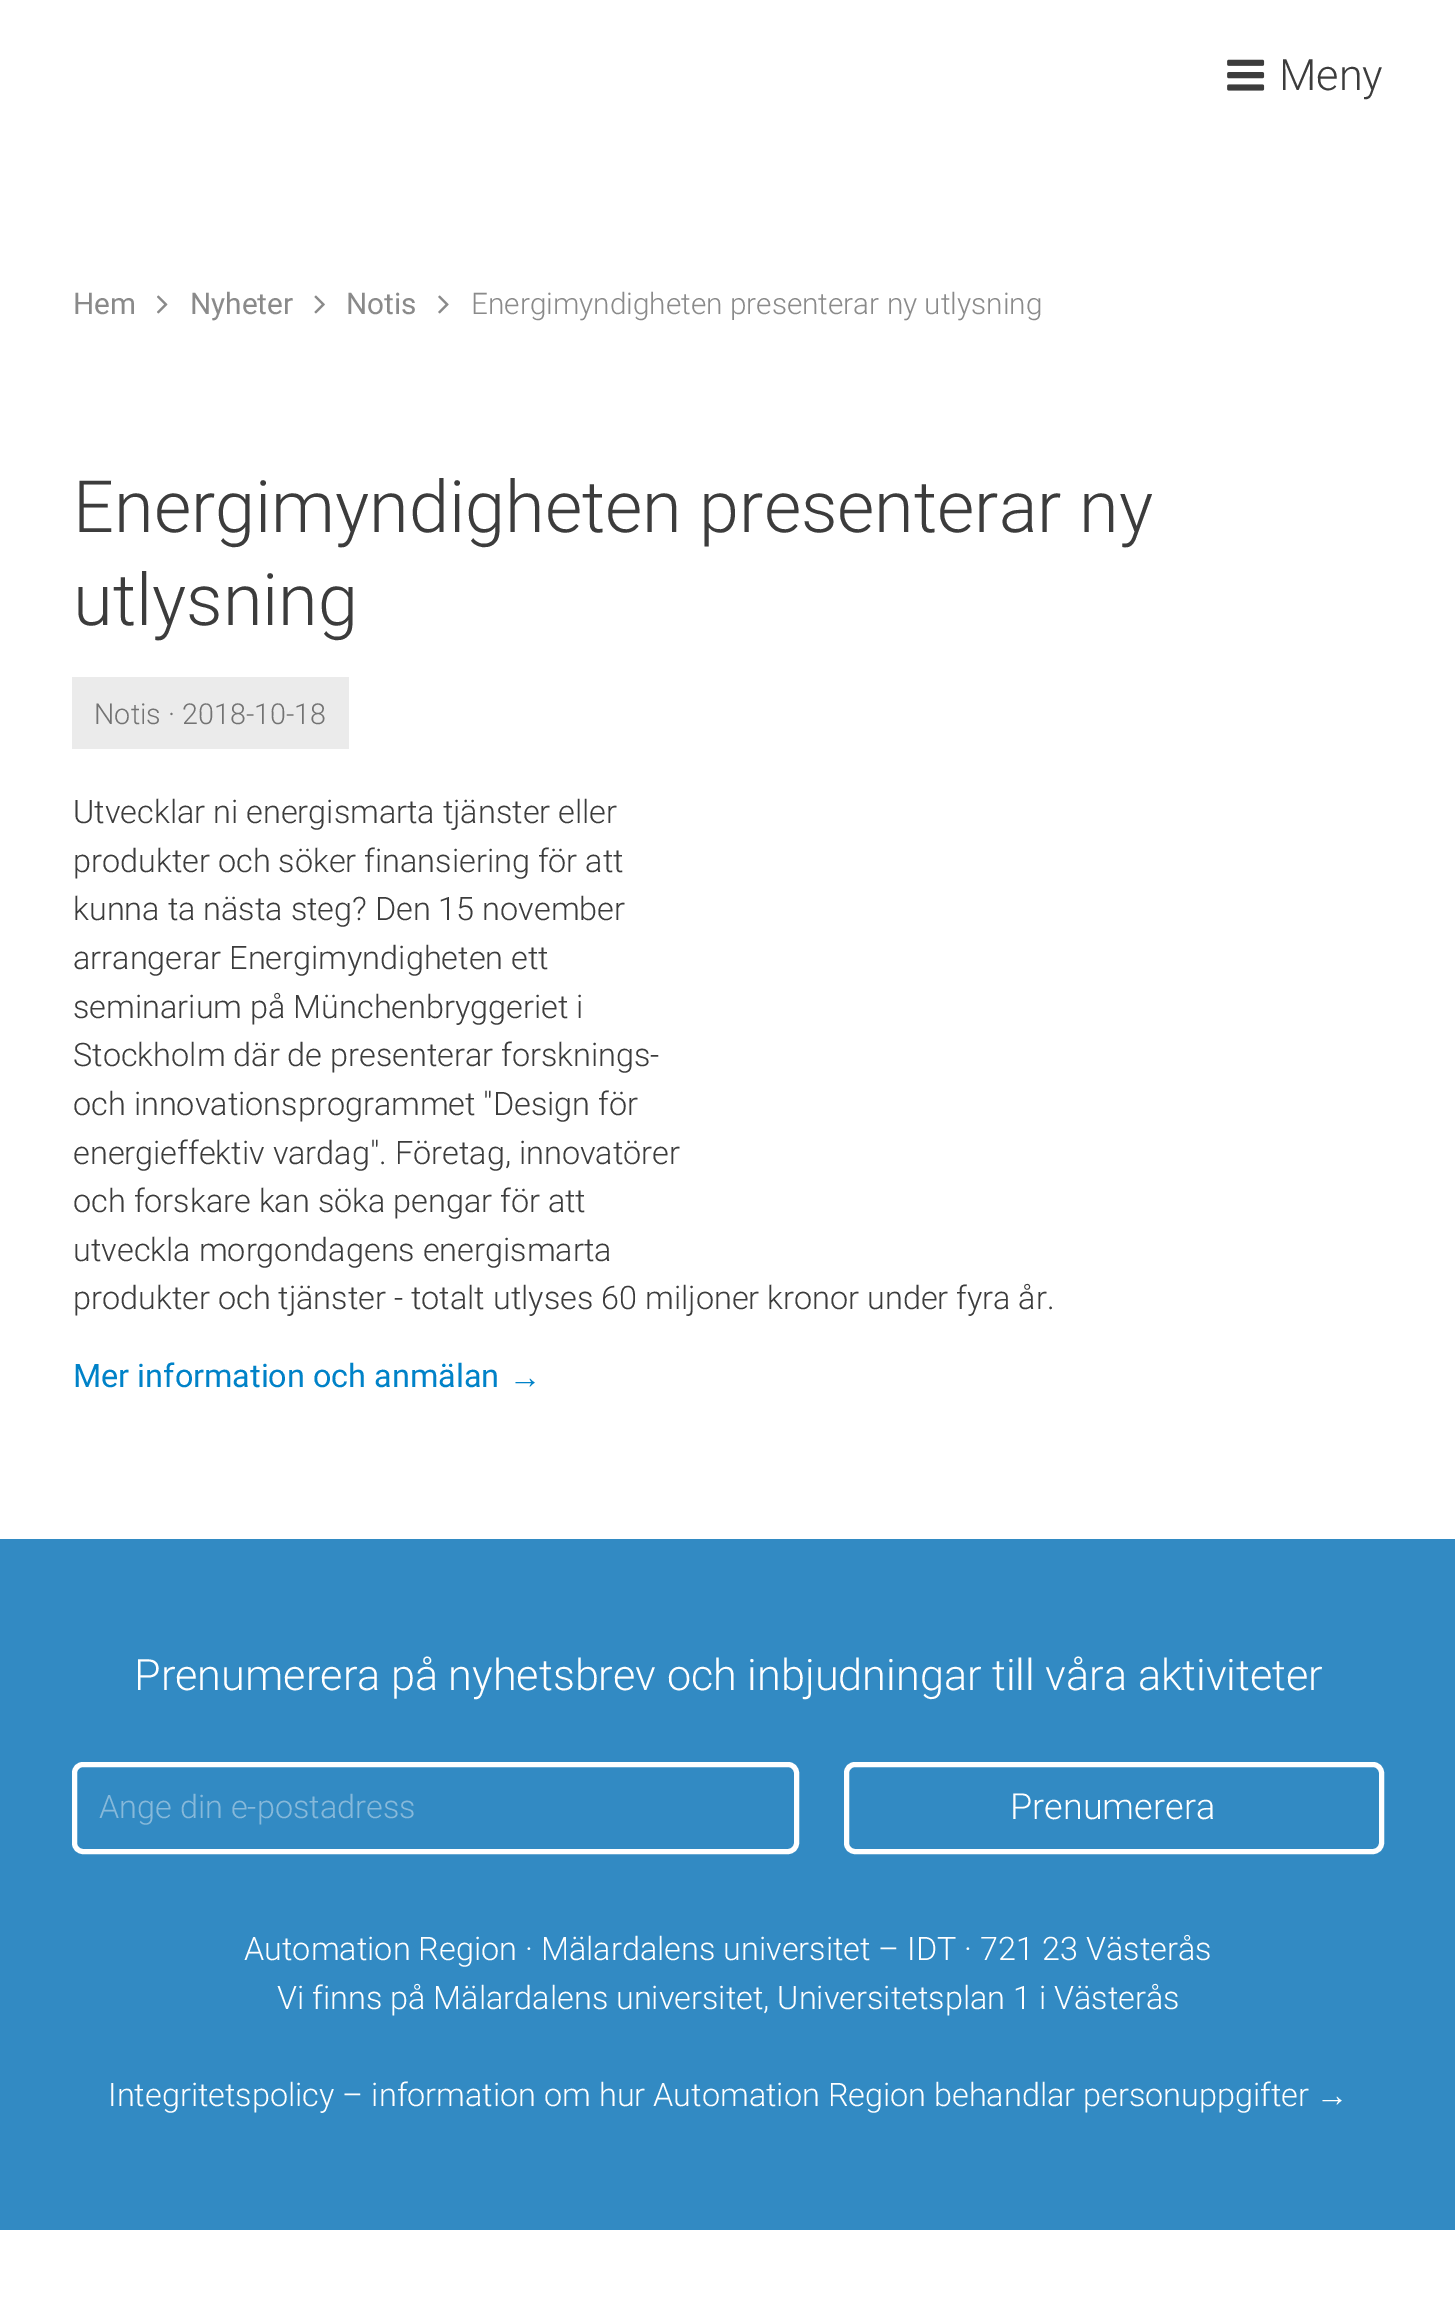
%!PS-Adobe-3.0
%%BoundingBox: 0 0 1455 2311
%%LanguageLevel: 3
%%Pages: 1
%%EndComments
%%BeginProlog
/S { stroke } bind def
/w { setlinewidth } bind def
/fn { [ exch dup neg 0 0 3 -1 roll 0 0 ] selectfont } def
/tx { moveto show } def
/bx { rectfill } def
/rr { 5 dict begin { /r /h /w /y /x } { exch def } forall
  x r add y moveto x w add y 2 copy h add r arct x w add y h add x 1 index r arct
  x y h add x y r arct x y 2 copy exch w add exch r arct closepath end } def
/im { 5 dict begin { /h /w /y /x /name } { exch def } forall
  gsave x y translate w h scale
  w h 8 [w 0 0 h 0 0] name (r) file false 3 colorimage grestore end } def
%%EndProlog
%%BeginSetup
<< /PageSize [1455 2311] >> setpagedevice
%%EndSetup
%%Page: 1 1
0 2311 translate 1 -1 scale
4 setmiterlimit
1 setgray
0 0 1455 2311 bx
(image0.raw) 1227 59 38 32 im
/Roboto-Light 43.2 fn
0.235 setgray
(Meny) 1279 90 tx
/Roboto-Regular 29.75 fn
0.541 setgray
(Hem) 73 314 tx
(image1.raw) 157 295 11 19 im
(Nyheter) 190 314 tx
(image2.raw) 314 295 11 19 im
(Notis) 346 314 tx
(image3.raw) 438 295 11 19 im
/Roboto-Light 29.75 fn
(Energimyndigheten presenterar ny utlysning) 471 314 tx
/Roboto-Light 72 fn
0.235 setgray
(Energimyndigheten presenterar ny) 73 532 tx
(utlysning) 73 625 tx
0.922 setgray
72 677 277 72 bx
/Roboto-Light 28.75 fn
0.451 setgray
(Notis · 2018-10-18) 94 724 tx
/Roboto-Light 32.4 fn
0.235 setgray
(Utvecklar ni energismarta tjänster eller) 73 823 tx
(produkter och söker finansiering för att) 73 872 tx
(kunna ta nästa steg? Den 15 november) 73 920 tx
(arrangerar Energimyndigheten ett) 73 969 tx
(seminarium på Münchenbryggeriet i) 73 1018 tx
(Stockholm där de presenterar forsknings-) 73 1066 tx
(och innovationsprogrammet "Design för) 73 1115 tx
(energieffektiv vardag". Företag, innovatörer) 73 1164 tx
(och forskare kan söka pengar för att) 73 1212 tx
(utveckla morgondagens energismarta) 73 1261 tx
(produkter och tjänster - totalt utlyses 60 miljoner kronor under fyra år.) 73 1309 tx
/Roboto-Regular 32.4 fn
0 0.51 0.784 setrgbcolor
(Mer information och anmälan) 73 1387 tx
/LiberationSans-Regular 32.4 fn
(→) 509 1388 tx
0.196 0.541 0.765 setrgbcolor
0 1539 1455 691 bx
/Roboto-Light 43.2 fn
1 setgray
(Prenumerera på nyhetsbrev och inbjudningar till våra aktiviteter) 134 1690 tx
5 w
74.5 1764.5 722 87 8.5 rr S
/Roboto-Light 32.4 fn
0.529 0.725 0.855 setrgbcolor
(Ange din e-postadress) 99 1818 tx
1 setgray
846.5 1764.5 535 87 8.5 rr S
/Roboto-Light 36 fn
(Prenumerera) 1010 1819 tx
/Roboto-Light 32.4 fn
(Automation Region · Mälardalens universitet – IDT · 721 23 Västerås) 244 1960 tx
(Vi finns på Mälardalens universitet, Universitetsplan 1 i Västerås) 277 2009 tx
(Integritetspolicy – information om hur Automation Region behandlar personuppgifter) 108 2106 tx
/LiberationSans-Regular 32.4 fn
(→) 1316 2106 tx
showpage
%%EOF
